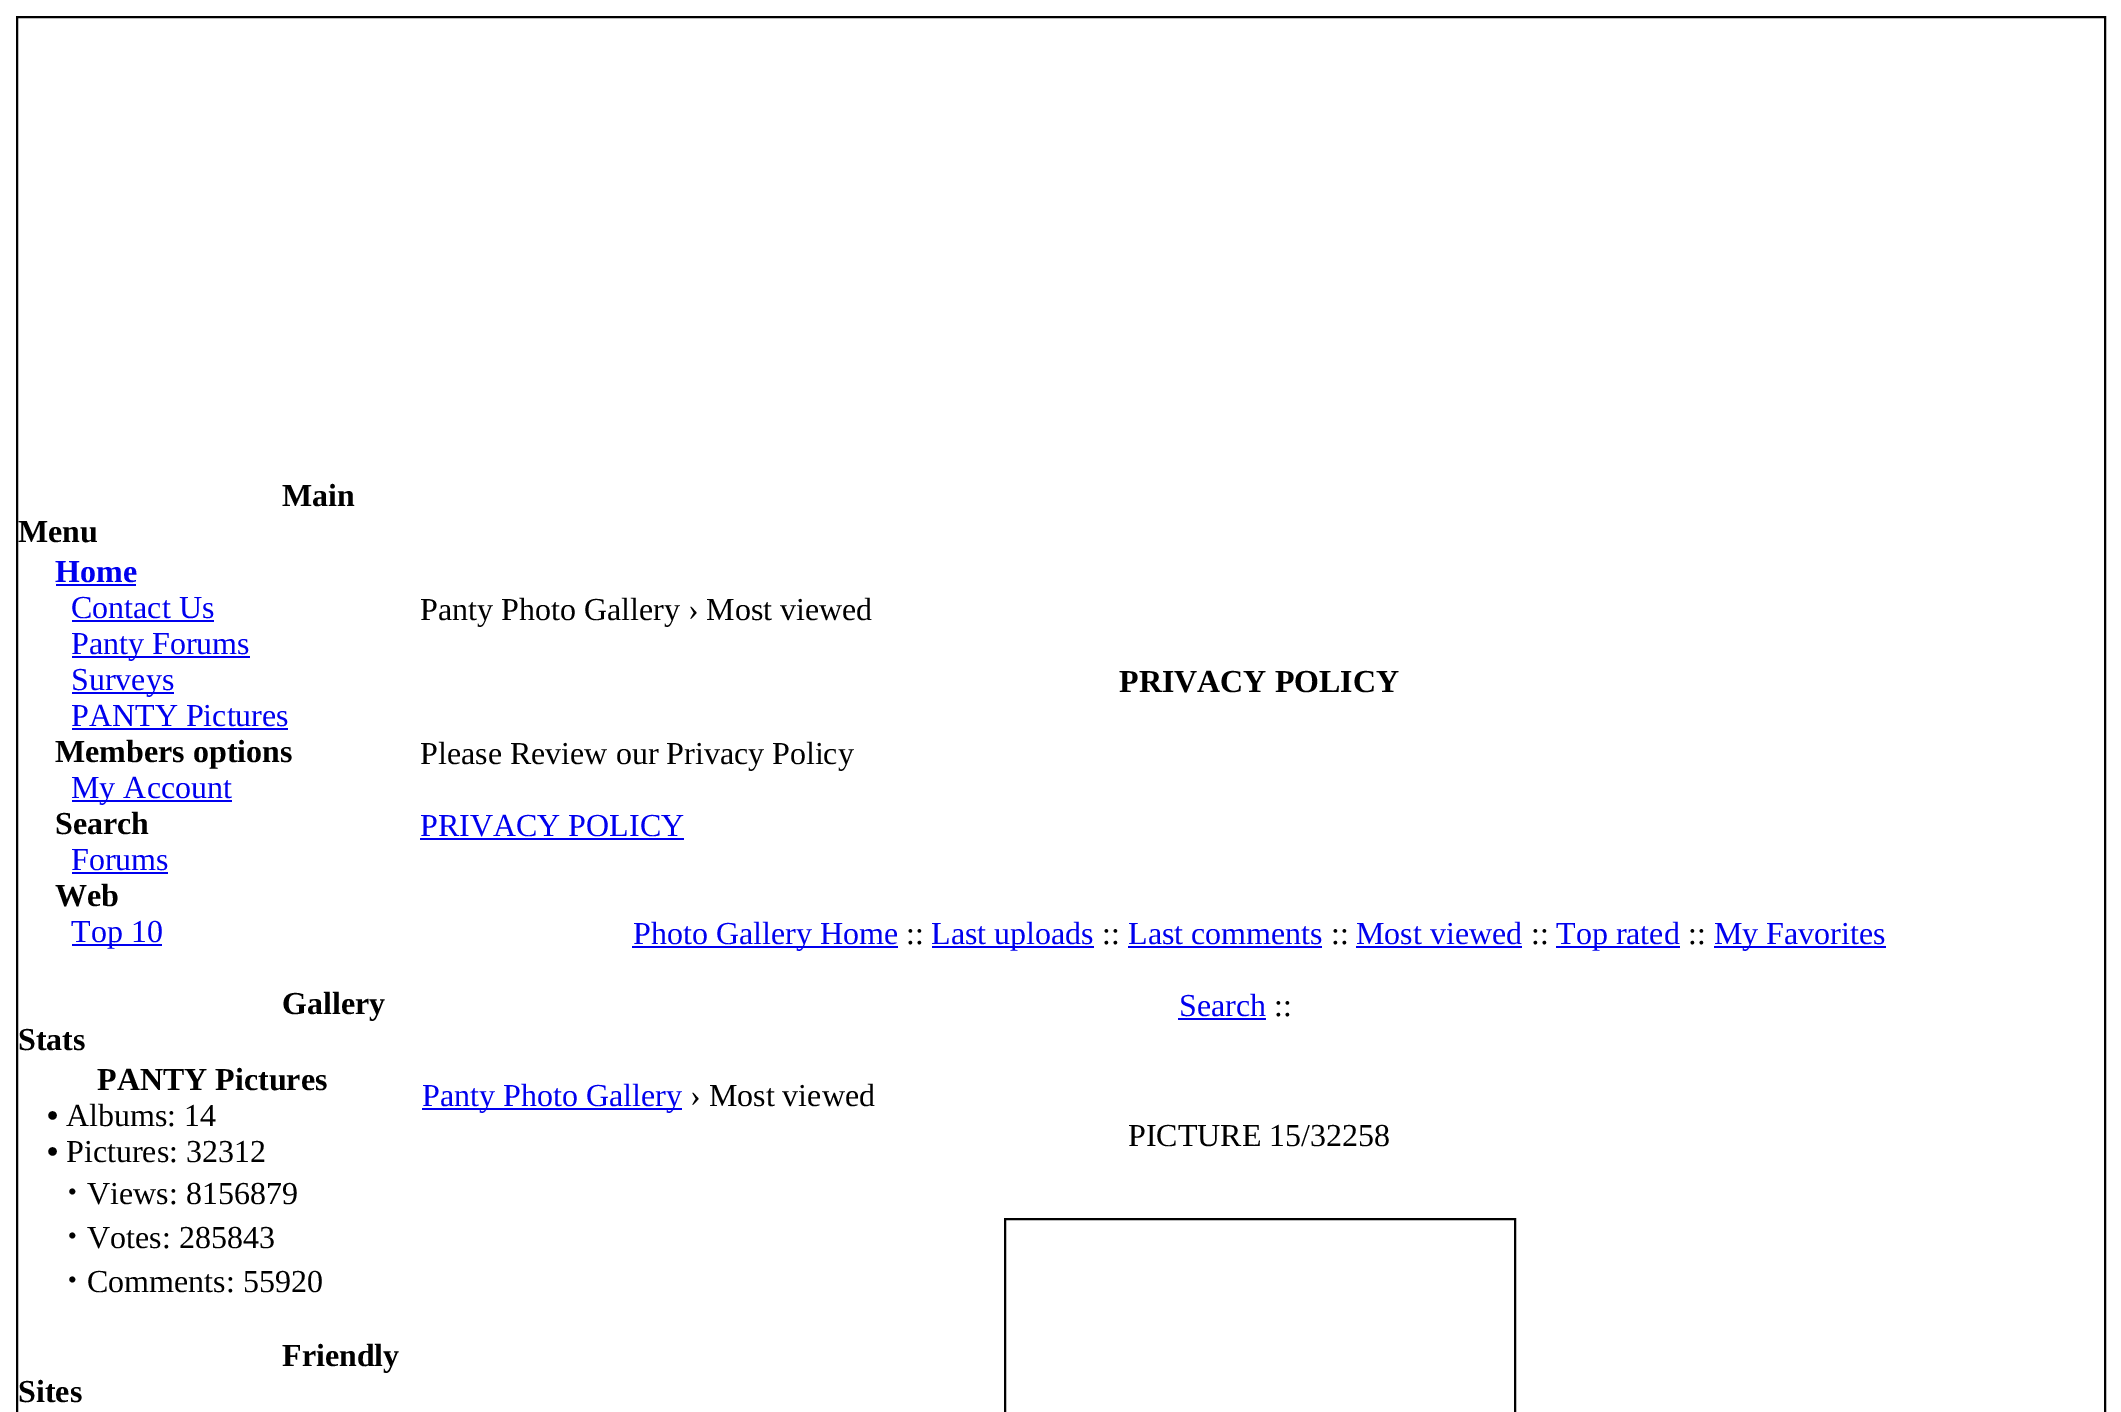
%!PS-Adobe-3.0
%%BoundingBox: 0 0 2121 1412
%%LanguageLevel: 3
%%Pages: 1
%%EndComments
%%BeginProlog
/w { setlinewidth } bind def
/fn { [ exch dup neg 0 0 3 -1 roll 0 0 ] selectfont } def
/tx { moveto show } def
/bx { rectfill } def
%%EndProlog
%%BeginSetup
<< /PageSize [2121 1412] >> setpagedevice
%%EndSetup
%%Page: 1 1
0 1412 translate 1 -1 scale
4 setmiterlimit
1 setgray
0 0 2121 1412 bx
0 setgray
2 w
17 17 2088 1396 rectstroke
/LiberationSerif-Bold 32 fn
(Main) 282 506 tx
(Menu) 18 542 tx
0 0 0.933 setrgbcolor
(Home) 55 582 tx
56 584 80 2 bx
/LiberationSerif-Regular 32 fn
(Contact Us) 71 618 tx
72 620 142 2 bx
72 656 178 2 bx
(Panty Forums) 71 654 tx
72 692 102 2 bx
(Surveys) 71 690 tx
(PANTY Pictures) 71 726 tx
72 728 216 2 bx
/LiberationSerif-Bold 32 fn
0 setgray
(Members options) 55 762 tx
0 0 0.933 setrgbcolor
72 800 160 2 bx
/LiberationSerif-Regular 32 fn
(My Account) 71 798 tx
/LiberationSerif-Bold 32 fn
0 setgray
(Search) 55 834 tx
/LiberationSerif-Regular 32 fn
0 0 0.933 setrgbcolor
(Forums) 71 870 tx
72 872 96 2 bx
/LiberationSerif-Bold 32 fn
0 setgray
(Web) 55 906 tx
0 0 0.933 setrgbcolor
72 944 90 2 bx
/LiberationSerif-Regular 32 fn
(Top 10) 71 942 tx
/LiberationSerif-Bold 32 fn
0 setgray
(Gallery) 282 1014 tx
(Stats) 18 1050 tx
(PANTY Pictures) 97 1090 tx
(•) 47 1126 tx
/LiberationSerif-Regular 32 fn
(Albums: 14) 66 1126 tx
/LiberationSerif-Bold 32 fn
(•) 47 1162 tx
/LiberationSerif-Regular 32 fn
(Pictures: 32312) 66 1162 tx
/LiberationSerif-Bold 38 fn
(·) 66 1204 tx
/LiberationSerif-Regular 32 fn
(Views: 8156879) 87 1204 tx
/LiberationSerif-Bold 38 fn
(·) 66 1248 tx
/LiberationSerif-Regular 32 fn
(Votes: 285843) 87 1248 tx
/LiberationSerif-Bold 38 fn
(·) 66 1292 tx
/LiberationSerif-Regular 32 fn
(Comments: 55920) 87 1292 tx
/LiberationSerif-Bold 32 fn
(Friendly) 282 1366 tx
(Sites) 18 1402 tx
/LiberationSerif-Regular 32 fn
(Panty Photo Gallery › Most viewed) 420 620 tx
/LiberationSerif-Bold 32 fn
(PRIVACY POLICY) 1119 692 tx
/LiberationSerif-Regular 32 fn
(Please Review our Privacy Policy) 420 764 tx
0 0 0.933 setrgbcolor
(PRIVACY POLICY) 420 836 tx
420 838 264 2 bx
632 946 266 2 bx
(Photo Gallery Home) 633 944 tx
0 setgray
(::) 906 944 tx
0 0 0.933 setrgbcolor
932 946 162 2 bx
(Last uploads) 931 944 tx
0 setgray
(::) 1102 944 tx
0 0 0.933 setrgbcolor
(Last comments) 1128 944 tx
1128 946 194 2 bx
0 setgray
(::) 1331 944 tx
0 0 0.933 setrgbcolor
(Most viewed) 1356 944 tx
1356 946 166 2 bx
0 setgray
(::) 1531 944 tx
0 0 0.933 setrgbcolor
1556 946 124 2 bx
(Top rated) 1556 944 tx
0 setgray
(::) 1688 944 tx
0 0 0.933 setrgbcolor
1714 946 172 2 bx
(My Favorites) 1714 944 tx
(Search) 1179 1016 tx
1178 1018 88 2 bx
0 setgray
(::) 1274 1016 tx
0 0 0.933 setrgbcolor
422 1108 260 2 bx
(Panty Photo Gallery) 422 1106 tx
0 setgray
(› Most viewed) 690 1106 tx
(PICTURE 15/32258) 1128 1146 tx
1005 1219 510 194 rectstroke
showpage
%%EOF
